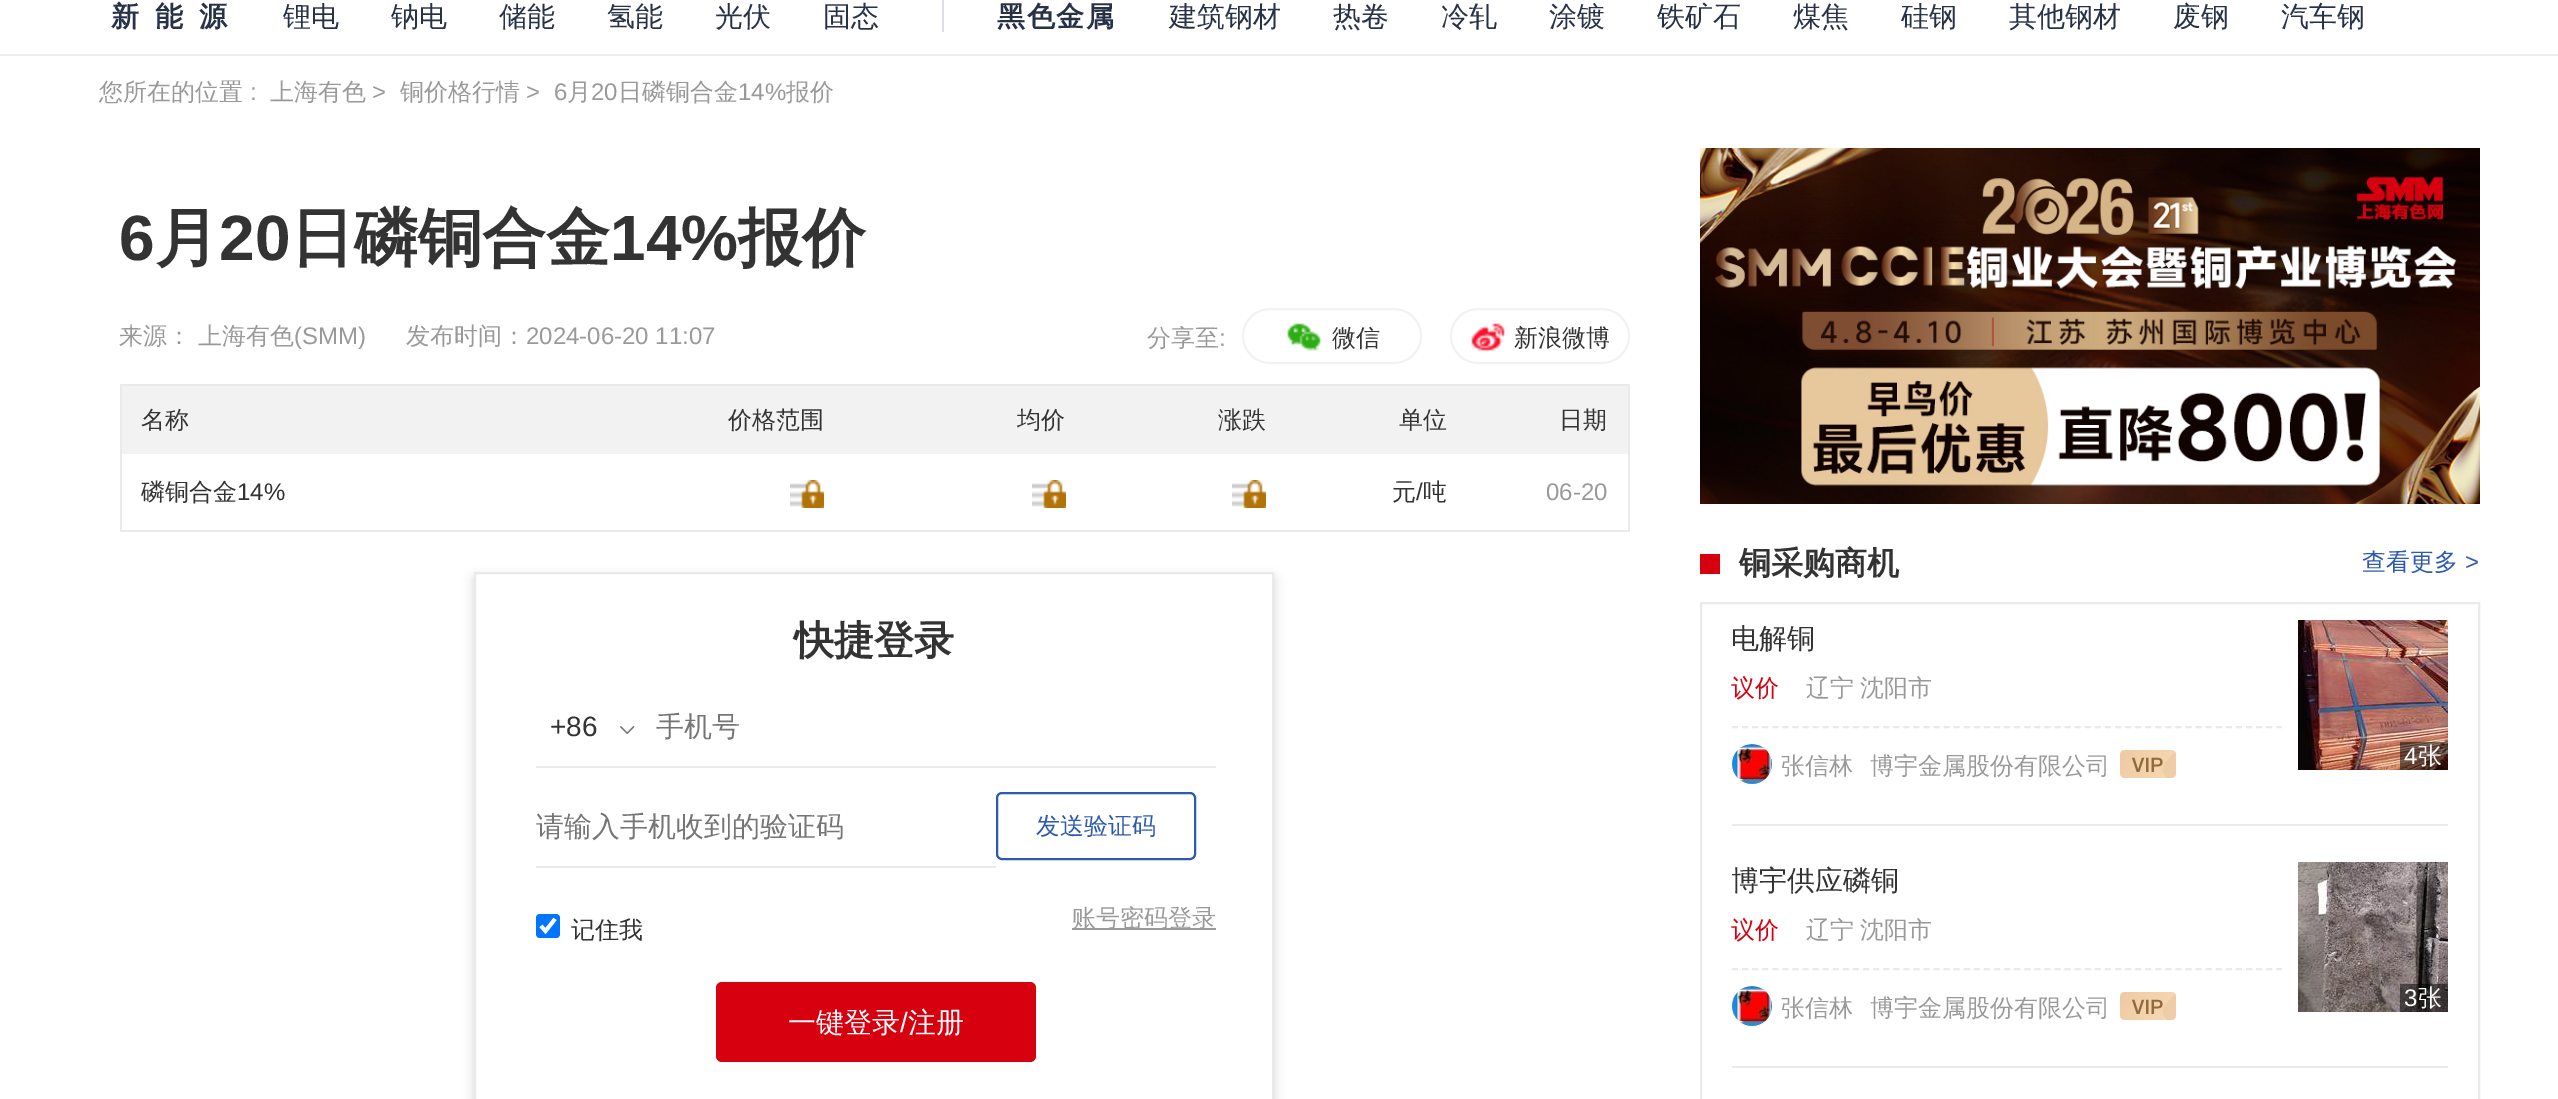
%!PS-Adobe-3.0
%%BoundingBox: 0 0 2558 1099
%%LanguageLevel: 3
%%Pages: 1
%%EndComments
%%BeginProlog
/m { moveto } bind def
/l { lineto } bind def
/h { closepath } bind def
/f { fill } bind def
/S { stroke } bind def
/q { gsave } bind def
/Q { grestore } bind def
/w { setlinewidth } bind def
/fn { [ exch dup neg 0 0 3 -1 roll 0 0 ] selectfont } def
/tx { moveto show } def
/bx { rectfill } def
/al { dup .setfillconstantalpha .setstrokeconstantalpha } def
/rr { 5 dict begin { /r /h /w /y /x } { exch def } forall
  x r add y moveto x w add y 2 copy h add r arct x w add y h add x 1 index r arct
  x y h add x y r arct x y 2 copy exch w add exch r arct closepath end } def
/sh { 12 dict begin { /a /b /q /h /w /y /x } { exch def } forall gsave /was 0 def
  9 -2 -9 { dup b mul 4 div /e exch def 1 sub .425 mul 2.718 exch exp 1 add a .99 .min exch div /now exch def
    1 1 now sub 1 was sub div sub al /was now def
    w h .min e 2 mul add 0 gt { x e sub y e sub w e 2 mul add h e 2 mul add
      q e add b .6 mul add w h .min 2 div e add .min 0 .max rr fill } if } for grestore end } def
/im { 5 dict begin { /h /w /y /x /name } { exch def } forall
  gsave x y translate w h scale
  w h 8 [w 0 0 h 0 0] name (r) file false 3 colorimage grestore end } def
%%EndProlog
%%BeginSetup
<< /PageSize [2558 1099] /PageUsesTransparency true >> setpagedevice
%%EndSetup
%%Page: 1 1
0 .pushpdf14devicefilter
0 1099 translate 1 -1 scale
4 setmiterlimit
1 setgray
0 0 2558 1099 bx
0.929 setgray
0 54 2558 2 bx
/WenQuanYiZenHei-Bold 28 fn
0.153 0.196 0.286 setrgbcolor
111 26 m 16 0 (新能源) ashow
/WenQuanYiZenHei-Medium 28 fn
(锂电) 283 26 tx
(钠电) 391 26 tx
(储能) 499 26 tx
(氢能) 607 26 tx
(光伏) 715 26 tx
(固态) 823 26 tx
0.867 0.875 0.902 setrgbcolor
942 0 2 32 bx
/WenQuanYiZenHei-Bold 28 fn
0.153 0.196 0.286 setrgbcolor
997 26 m 1.5 0 (黑色金属) ashow
/WenQuanYiZenHei-Medium 28 fn
(建筑钢材) 1169 26 tx
(热卷) 1333 26 tx
(冷轧) 1441 26 tx
(涂镀) 1549 26 tx
(铁矿石) 1657 26 tx
(煤焦) 1793 26 tx
(硅钢) 1901 26 tx
(其他钢材) 2009 26 tx
(废钢) 2173 26 tx
(汽车钢) 2281 26 tx
/WenQuanYiZenHei-Medium 24 fn
0.6 setgray
(您所在的位置) 99 100 tx
/LiberationSans-Regular 24 fn
(:) 250 100 tx
/WenQuanYiZenHei-Medium 24 fn
(上海有色) 270 100 tx
/LiberationSans-Regular 24 fn
(>) 372 100 tx
/WenQuanYiZenHei-Medium 24 fn
(铜价格行情) 400 100 tx
/LiberationSans-Regular 24 fn
(>) 526 100 tx
(6) 554 100 tx
/WenQuanYiZenHei-Medium 24 fn
(月) 567 100 tx
/LiberationSans-Regular 24 fn
(20) 591 100 tx
/WenQuanYiZenHei-Medium 24 fn
(日磷铜合金) 618 100 tx
/LiberationSans-Regular 24 fn
(14%) 738 100 tx
/WenQuanYiZenHei-Medium 24 fn
(报价) 786 100 tx
/LiberationSans-Bold 64 fn
0.2 setgray
(6) 119 260 tx
/WenQuanYiZenHei-Bold 64 fn
(月) 155 260 tx
/LiberationSans-Bold 64 fn
(20) 219 260 tx
/WenQuanYiZenHei-Bold 64 fn
(日磷铜合金) 290 260 tx
/LiberationSans-Bold 64 fn
(14%) 610 260 tx
/WenQuanYiZenHei-Bold 64 fn
(报价) 738 260 tx
/WenQuanYiZenHei-Medium 24 fn
0.6 setgray
(来源：) 119 344 tx
(上海有色) 198 344 tx
/LiberationSans-Regular 24 fn
(\(SMM\)) 294 344 tx
/WenQuanYiZenHei-Medium 24 fn
(发布时间：) 406 344 tx
/LiberationSans-Regular 24 fn
(2024-06-20 11:07) 526 344 tx
/WenQuanYiZenHei-Medium 24 fn
(分享至) 1147 346 tx
/LiberationSans-Regular 24 fn
(:) 1219 346 tx
0.949 setgray
2 w
1243 309 178 54 27 rr S
(image0.raw) 1287 323 34 28 im
/WenQuanYiZenHei-Medium 24 fn
0.2 setgray
(微信) 1332 346 tx
0.949 setgray
1451 309 178 54 27 rr S
(image1.raw) 1471 323 34 30 im
0.2 setgray
(新浪微博) 1514 346 tx
0.914 0.918 0.918 setrgbcolor
120 384 1510 2 bx
1628 384 2 148 bx
120 530 1510 2 bx
120 384 2 148 bx
0.949 setgray
122 386 1506 68 bx
0.2 setgray
(名称) 141 428 tx
(价格范围) 728 428 tx
(均价) 1017 428 tx
(涨跌) 1218 428 tx
(单位) 1399 428 tx
(日期) 1559 428 tx
(磷铜合金) 141 500 tx
/LiberationSans-Regular 24 fn
(14%) 237 500 tx
(image2.raw) 790 480 34 28 im
(image2.raw) 1032 480 34 28 im
(image2.raw) 1232 480 34 28 im
/WenQuanYiZenHei-Medium 24 fn
(元) 1392 500 tx
/LiberationSans-Regular 24 fn
(/) 1416 500 tx
/WenQuanYiZenHei-Medium 24 fn
(吨) 1423 500 tx
/LiberationSans-Regular 24 fn
0.6 setgray
(06-20) 1546 500 tx
q
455 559 m 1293 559 l 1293 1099 l 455 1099 l h 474 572 m 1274 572 l 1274 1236 l 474 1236 l h eoclip newpath
0 setgray
474 578 800 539 0 6 0.16 sh
Q
0.914 0.918 0.918 setrgbcolor
475 573 798 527 rectstroke
/WenQuanYiZenHei-Bold 40 fn
0.2 setgray
(快捷登录) 794 654 tx
0.914 0.918 0.918 setrgbcolor
536 766 680 2 bx
/LiberationSans-Regular 28 fn
0.2 setgray
(+86) 550 736 tx
(image3.raw) 620 726 15 8 im
/WenQuanYiZenHei-Medium 28 fn
0.459 setgray
(手机号) 656 736 tx
0.914 0.918 0.918 setrgbcolor
536 866 460 2 bx
0.459 setgray
(请输入手机收到的验证码) 536 836 tx
0.176 0.349 0.694 setrgbcolor
997 793 198 66 5 rr S
/WenQuanYiZenHei-Medium 24 fn
(发送验证码) 1036 834 tx
0 0.459 1 setrgbcolor
536 914 24 24 4 rr f
1 setgray
3.8 w
541 926 m 545.5 931 l 555 919 l S
0.2 setgray
(记住我) 571 938 tx
0.6 setgray
1072 928 144 2 bx
(账号密码登录) 1072 926 tx
0.843 0 0.059 setrgbcolor
716 982 320 80 6 rr f
/WenQuanYiZenHei-Medium 28 fn
1 setgray
(一键登录) 788 1032 tx
/LiberationSans-Regular 28 fn
(/) 900 1032 tx
/WenQuanYiZenHei-Medium 28 fn
(注册) 908 1032 tx
(image4.raw) 1700 148 780 356 im
0.843 0 0.059 setrgbcolor
1700 554 20 20 bx
/WenQuanYiZenHei-Bold 32 fn
0.2 setgray
(铜采购商机) 1739 574 tx
/WenQuanYiZenHei-Medium 24 fn
0.176 0.349 0.694 setrgbcolor
(查看更多) 2362 570 tx
/LiberationSans-Regular 24 fn
(>) 2465 570 tx
0.914 0.918 0.918 setrgbcolor
2 w
1701 603 778 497 rectstroke
1732 824 716 2 bx
/WenQuanYiZenHei-Medium 28 fn
0.2 setgray
(电解铜) 1731 648 tx
0.914 0.918 0.918 setrgbcolor
[6 4.08] 0 setdash
1732 727 m 2282 727 l S
/WenQuanYiZenHei-Medium 24 fn
0.843 0 0.059 setrgbcolor
(议价) 1731 696 tx
0.6 setgray
(辽宁) 1806 696 tx
(沈阳市) 1860 696 tx
(image5.raw) 1732 744 40 40 im
(张信林) 1781 774 tx
(博宇金属股份有限公司) 1870 774 tx
(image6.raw) 2120 750 56 28 im
(image7.raw) 2298 620 150 150 im
0.5 al
0 setgray
2400 742 48 28 bx
/LiberationSans-Regular 24 fn
1 al
1 setgray
(4) 2404 764 tx
/WenQuanYiZenHei-Medium 24 fn
(张) 2418 764 tx
0.914 0.918 0.918 setrgbcolor
1732 1066 716 2 bx
q
1732 862 550 36 rectclip
/WenQuanYiZenHei-Medium 28 fn
0.2 setgray
(博宇供应磷铜) 1731 890 tx
Q
1732 969 m 2282 969 l S
0.843 0 0.059 setrgbcolor
(议价) 1731 938 tx
0.6 setgray
(辽宁) 1806 938 tx
(沈阳市) 1860 938 tx
(image8.raw) 1732 986 40 40 im
(张信林) 1781 1016 tx
(博宇金属股份有限公司) 1870 1016 tx
(image6.raw) 2120 992 56 28 im
(image9.raw) 2298 862 150 150 im
0.5 al
0 setgray
2400 984 48 28 bx
/LiberationSans-Regular 24 fn
1 al
1 setgray
(3) 2404 1006 tx
/WenQuanYiZenHei-Medium 24 fn
(张) 2418 1006 tx
.poppdf14devicefilter showpage
%%EOF
